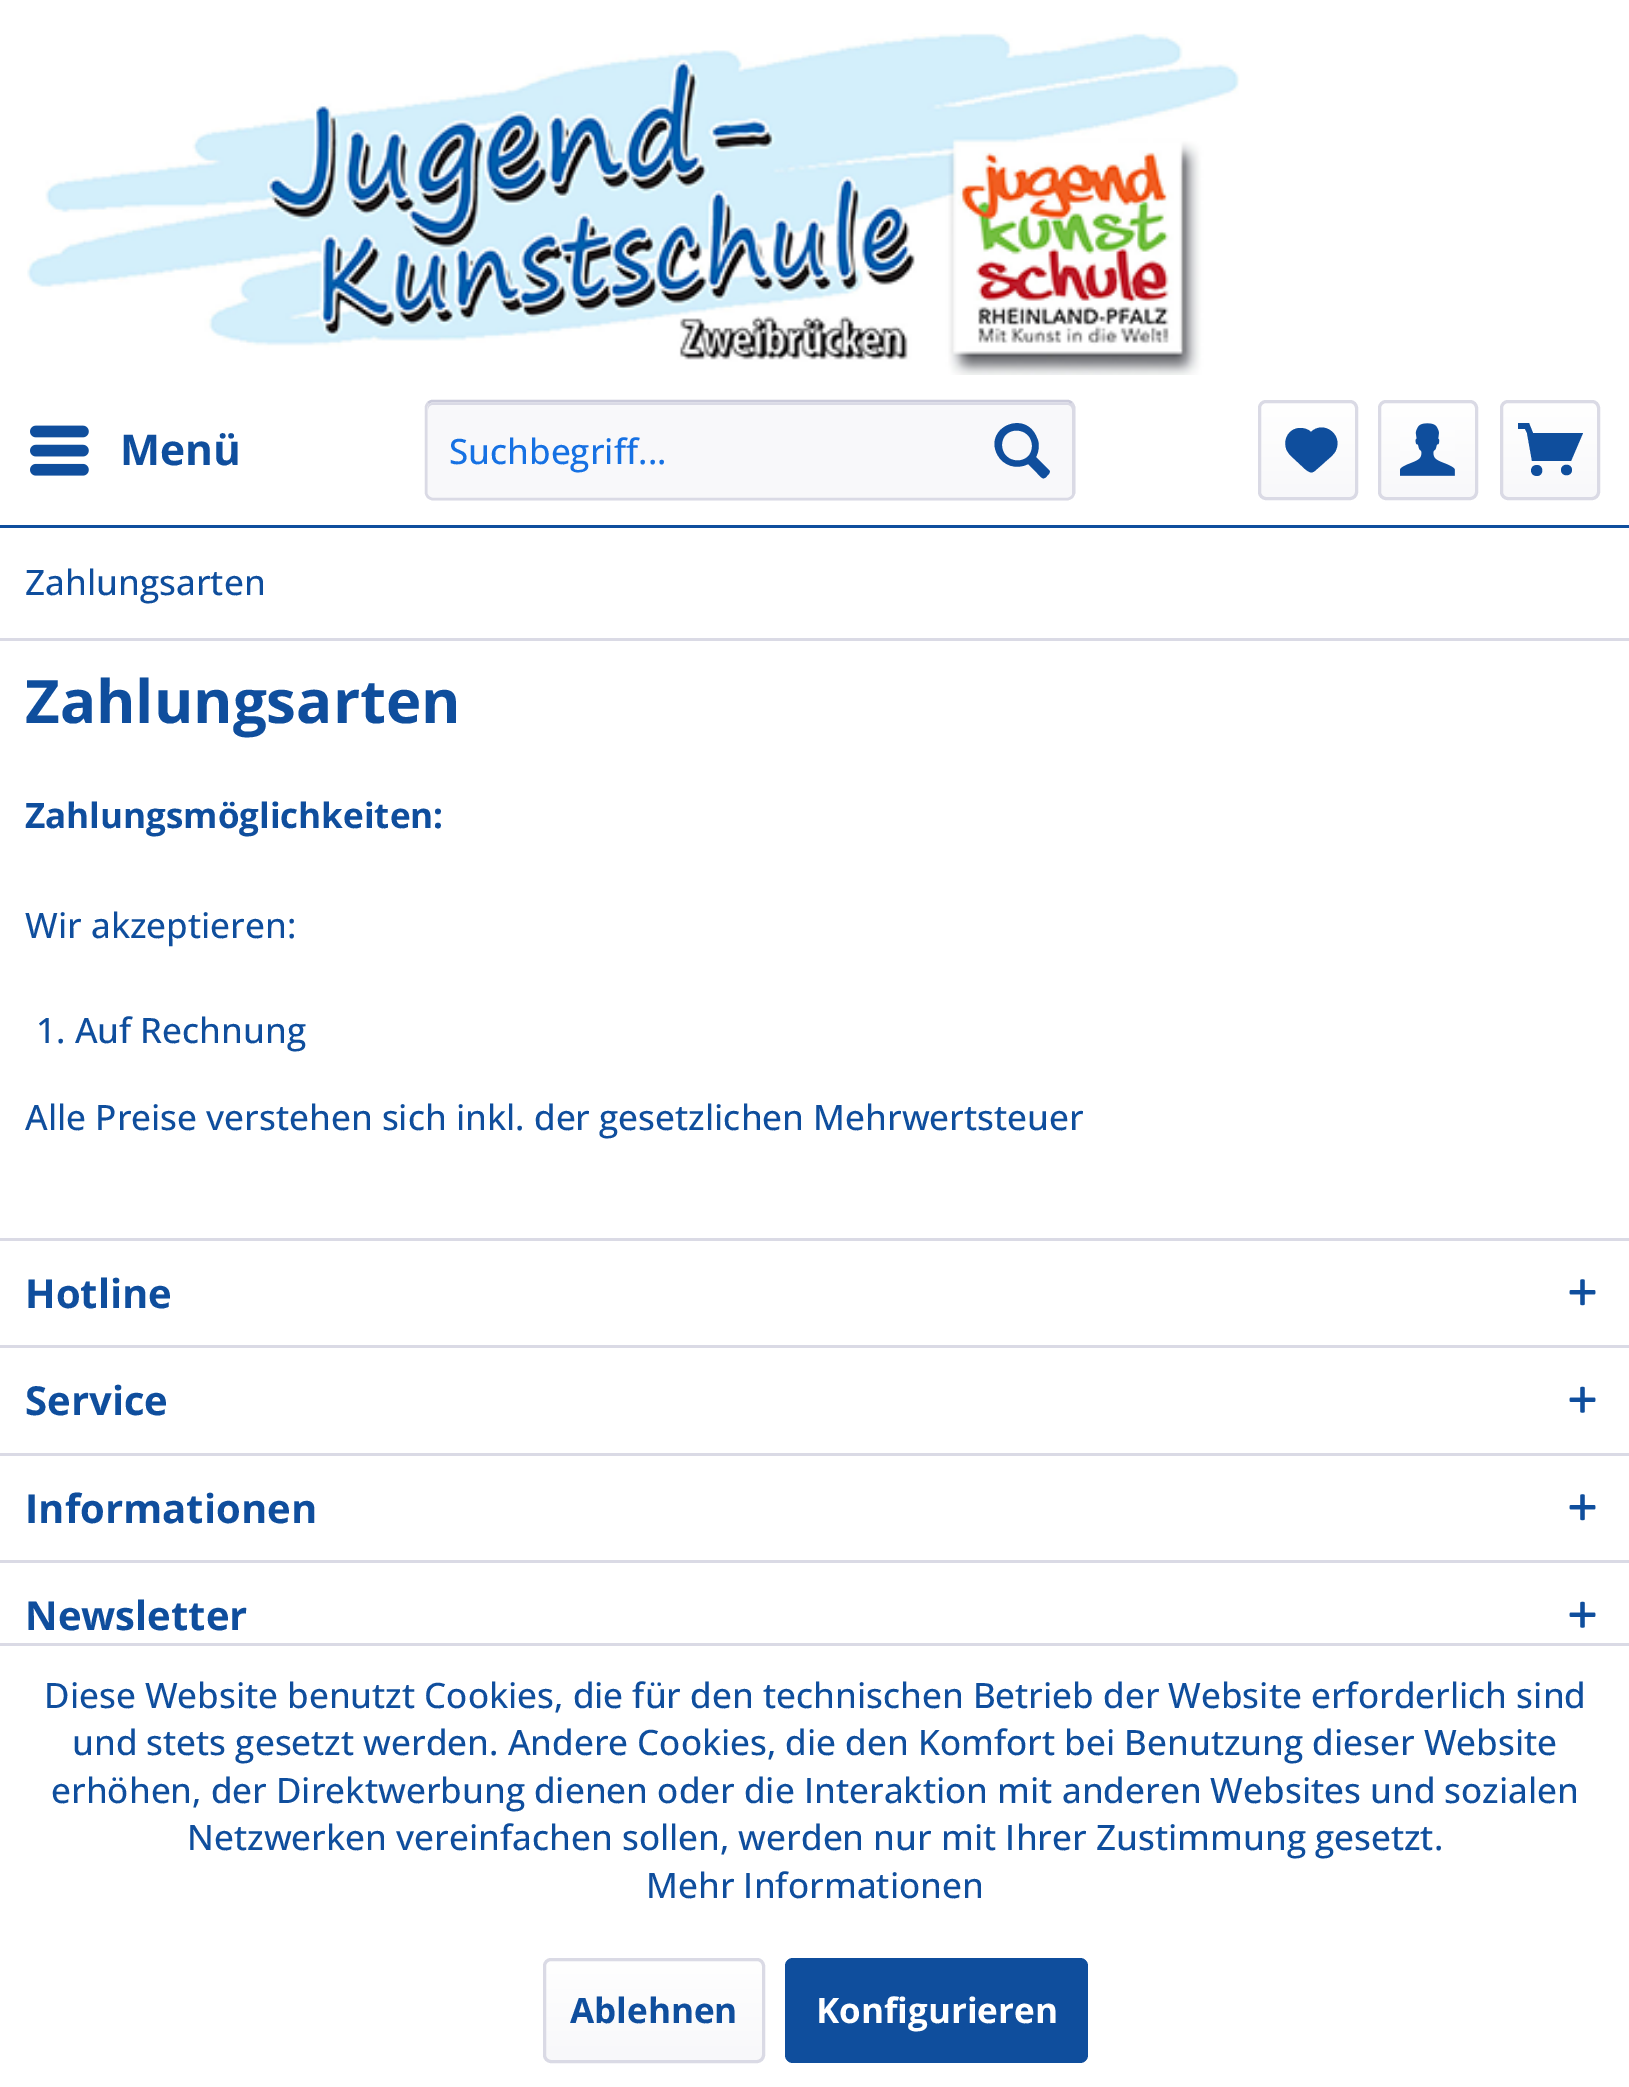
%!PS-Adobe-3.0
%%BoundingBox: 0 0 1629 2087
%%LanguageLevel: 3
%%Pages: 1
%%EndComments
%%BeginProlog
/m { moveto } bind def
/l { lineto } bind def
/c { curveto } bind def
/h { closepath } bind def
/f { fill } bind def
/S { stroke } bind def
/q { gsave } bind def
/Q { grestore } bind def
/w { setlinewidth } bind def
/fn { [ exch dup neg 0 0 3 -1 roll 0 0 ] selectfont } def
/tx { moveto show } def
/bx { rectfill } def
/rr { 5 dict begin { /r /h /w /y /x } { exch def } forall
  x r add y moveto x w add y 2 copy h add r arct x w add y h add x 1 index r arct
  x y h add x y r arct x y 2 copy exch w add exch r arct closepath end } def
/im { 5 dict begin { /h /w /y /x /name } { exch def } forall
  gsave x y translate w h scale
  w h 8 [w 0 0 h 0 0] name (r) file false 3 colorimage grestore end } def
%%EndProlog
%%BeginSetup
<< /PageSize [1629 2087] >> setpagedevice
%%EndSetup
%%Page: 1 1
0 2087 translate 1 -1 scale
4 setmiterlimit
1 setgray
0 0 1629 2087 bx
0.059 0.306 0.616 setrgbcolor
0 525 1629 3 bx
(image0.raw) 27 33 1213 342 im
(image1.raw) 30 425 59 51 im
/OpenSans-Bold 42.5 fn
(Menü) 120 465 tx
0.973 0.973 0.98 setrgbcolor
425 400 650 100 8 rr f
0.855 0.855 0.898 setrgbcolor
432 405 m 1068 405 l 1070 405 1072 407 1072 410 c 1072 496 l 1073 495 1073 494 1073 493 c 1073 408 l 1073 405 1071 403 1068 403 c 433 403 l 430 403 428 405 428 408 c 428 410 l 428 407 430 405 432 405 c h f
0.796 0.796 0.859 setrgbcolor
2.5 w
428 403 m 429.5 402 431 401 432.5 401 c 1067.5 401 l 1069 401 1070.5 402 1072 403 c S
0.855 0.855 0.898 setrgbcolor
1072 403 m 1073 404.5 1074 406 1074 407.5 c 1074 492.5 l 1074 494 1073 495.5 1072 497 c 1070.5 498 1069 499 1067.5 499 c 432.5 499 l 431 499 429.5 498 428 497 c 427 495.5 426 494 426 492.5 c 426 407.5 l 426 406 427 404.5 428 403 c S
/OpenSans-Medium 35 fn
0.086 0.443 0.89 setrgbcolor
(Suchbegriff...) 449 464 tx
0.059 0.306 0.616 setrgbcolor
1049 470 m 1036 457 l 1039 451 1040 444 1037 438 c 1026 409 984 427 997 454 c 1003 466 1017 470 1028 464 c 1037 473 l 1041 477 1043 481 1047 476 c 1049 474 1051 472 1049 470 c h 1002 445 m 1002 425 1032 426 1032 446 c 1032 466 1002 465 1002 445 c h f
q 1260 403 95 95 5 rr clip newpath
<< /ShadingType 2 /ColorSpace /DeviceRGB /Coords [1308 403 1308 498] /Extend [true true] /Function << /FunctionType 2 /Domain [0 1] /C0 [1 1 1] /C1 [0.973 0.973 0.98] /N 1 >> >> shfill Q
0.855 0.855 0.898 setrgbcolor
3 w
1259.5 401.5 97 97 6.5 rr S
0.059 0.306 0.616 setrgbcolor
1300 428 m 1290 428 1283 438 1286 448 c 1286 450 1290 455 1290 455 c 1305 469 l 1310 473 1312 474 1317 469 c 1325 462 l 1329 458 1334 455 1336 450 c 1343 434 1323 420 1311 432 c 1308 429 1304 428 1300 428 c h f
q 1380 403 95 95 5 rr clip newpath
<< /ShadingType 2 /ColorSpace /DeviceRGB /Coords [1428 403 1428 498] /Extend [true true] /Function << /FunctionType 2 /Domain [0 1] /C0 [1 1 1] /C1 [0.973 0.973 0.98] /N 1 >> >> shfill Q
0.855 0.855 0.898 setrgbcolor
1379.5 401.5 97 97 6.5 rr S
(image2.raw) 1400 423 55 53 im
q 1503 403 95 95 5 rr clip newpath
<< /ShadingType 2 /ColorSpace /DeviceRGB /Coords [1550 403 1550 498] /Extend [true true] /Function << /FunctionType 2 /Domain [0 1] /C0 [1 1 1] /C1 [0.973 0.973 0.98] /N 1 >> >> shfill Q
1501.5 401.5 97 97 6.5 rr S
0.059 0.306 0.616 setrgbcolor
1532 461 m 1571 461 l 1583 433 l 1533 433 l 1529 423 l 1518 423 l 1518 429 l 1525 429 l 1527 433 l h 1537 465 m 1529 465 1529 476 1537 476 c 1544 476 1544 465 1537 465 c h 1572 470 m 1572 477 1561 477 1561 470 c 1561 463 1572 463 1572 470 c h f
0.855 0.855 0.898 setrgbcolor
0 638 1629 3 bx
0.059 0.306 0.616 setrgbcolor
(Zahlungsarten) 25 595 tx
/OpenSans-Bold 60 fn
(Zahlungsarten) 25 723 tx
/OpenSans-Bold 35 fn
(Zahlungsmöglichkeiten:) 25 828 tx
/OpenSans-Medium 35 fn
(Wir akzeptieren:) 25 938 tx
(1. Auf Rechnung) 36 1043 tx
(Alle Preise verstehen sich inkl. der gesetzlichen Mehrwertsteuer) 25 1130 tx
0.855 0.855 0.898 setrgbcolor
0 1238 1629 3 bx
/OpenSans-Bold 40 fn
0.059 0.306 0.616 setrgbcolor
(Hotline) 25 1308 tx
(image3.raw) 1569 1279 27 27 im
0.855 0.855 0.898 setrgbcolor
0 1345 1629 3 bx
0.059 0.306 0.616 setrgbcolor
(Service) 25 1415 tx
(image4.raw) 1569 1386 27 27 im
0.855 0.855 0.898 setrgbcolor
0 1453 1629 3 bx
0.059 0.306 0.616 setrgbcolor
(Informationen) 25 1523 tx
(image3.raw) 1569 1494 27 27 im
0.855 0.855 0.898 setrgbcolor
0 1560 1629 3 bx
0.059 0.306 0.616 setrgbcolor
(Newsletter) 25 1630 tx
(image4.raw) 1569 1601 27 27 im
0.855 0.855 0.898 setrgbcolor
0 1643 1629 3 bx
/OpenSans-Medium 35 fn
0.059 0.306 0.616 setrgbcolor
(Diese Website benutzt Cookies, die für den technischen Betrieb der Website erforderlich sind) 44 1708 tx
(und stets gesetzt werden. Andere Cookies, die den Komfort bei Benutzung dieser Website) 72 1755 tx
(erhöhen, der Direktwerbung dienen oder die Interaktion mit anderen Websites und sozialen) 51 1803 tx
(Netzwerken vereinfachen sollen, werden nur mit Ihrer Zustimmung gesetzt.) 187 1850 tx
(Mehr Informationen) 646 1898 tx
q 545 1960 218 100 5 rr clip newpath
<< /ShadingType 2 /ColorSpace /DeviceRGB /Coords [654 1960 654 2060] /Extend [true true] /Function << /FunctionType 2 /Domain [0 1] /C0 [1 1 1] /C1 [0.973 0.973 0.98] /N 1 >> >> shfill Q
0.855 0.855 0.898 setrgbcolor
544.5 1959.5 219 102 6.5 rr S
/OpenSans-Bold 35 fn
0.059 0.306 0.616 setrgbcolor
(Ablehnen) 570 2023 tx
785 1958 303 105 8 rr f
1 setgray
(Konfigurieren) 816 2023 tx
showpage
%%EOF
